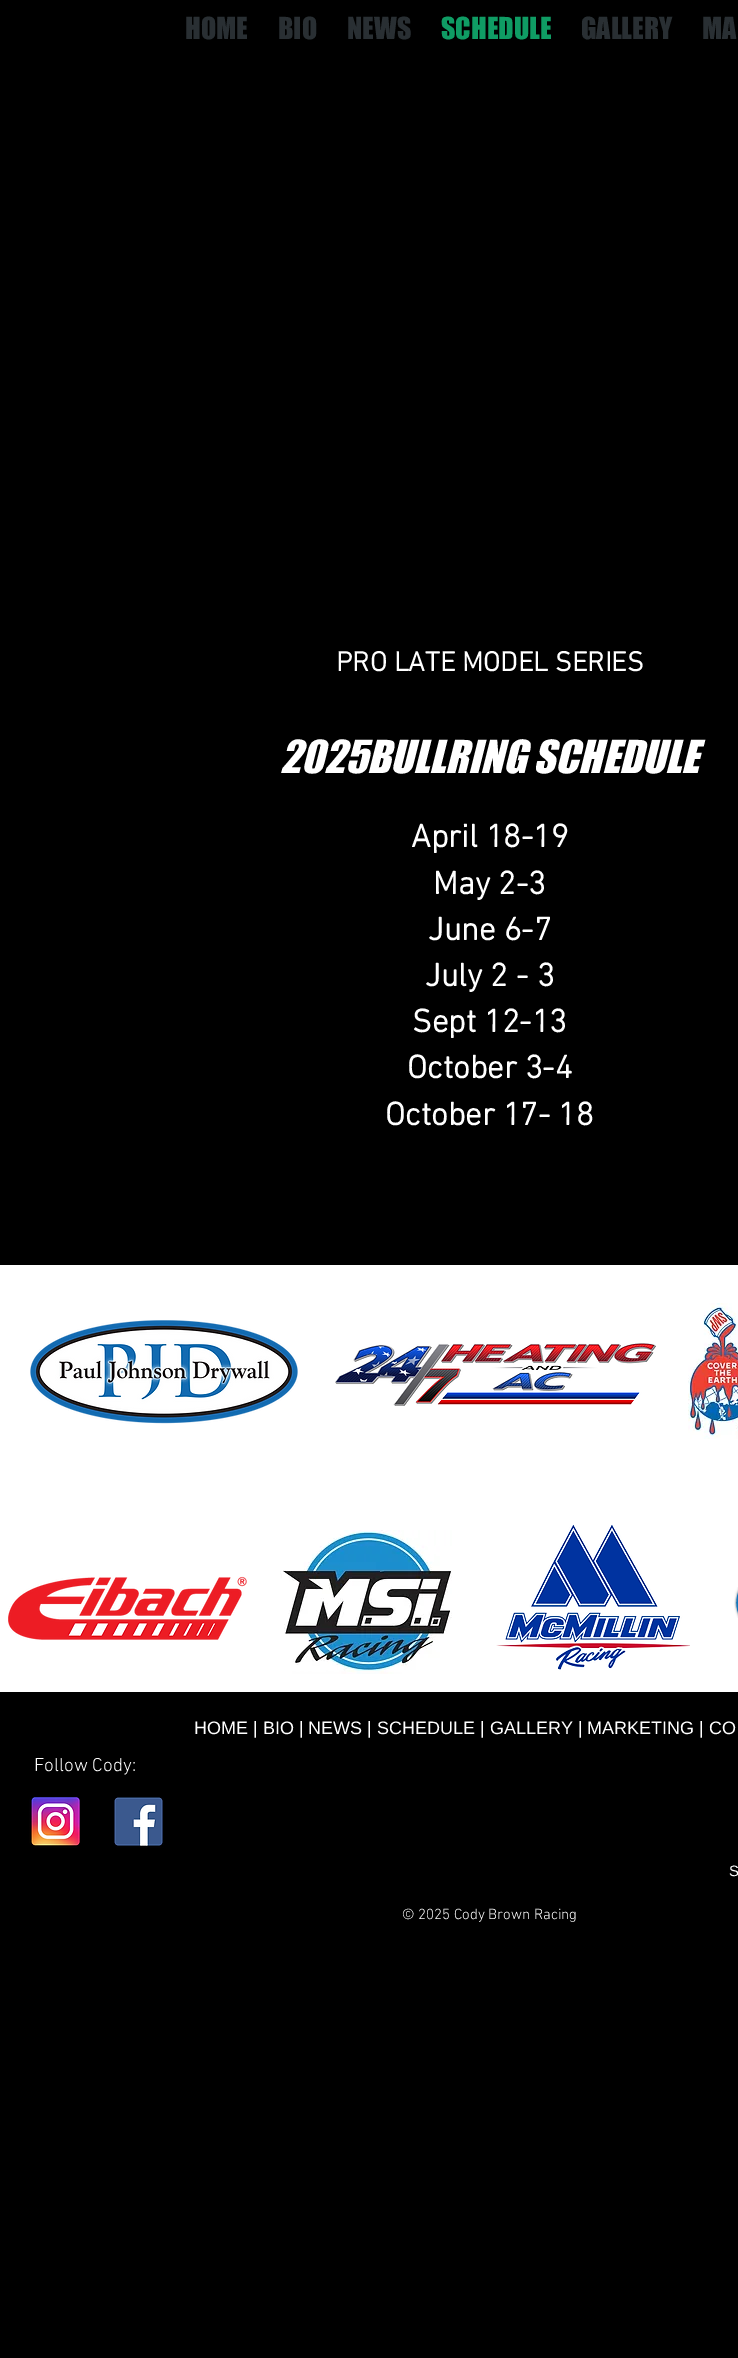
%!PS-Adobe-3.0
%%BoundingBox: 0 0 738 2358
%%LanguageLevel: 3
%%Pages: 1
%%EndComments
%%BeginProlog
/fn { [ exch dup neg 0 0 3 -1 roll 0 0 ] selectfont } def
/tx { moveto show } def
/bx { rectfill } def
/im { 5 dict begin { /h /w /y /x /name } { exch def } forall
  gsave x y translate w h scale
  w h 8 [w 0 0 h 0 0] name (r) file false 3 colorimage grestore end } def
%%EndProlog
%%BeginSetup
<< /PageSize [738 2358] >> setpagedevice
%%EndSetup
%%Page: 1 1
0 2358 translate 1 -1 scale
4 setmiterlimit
0 setgray
0 0 738 2358 bx
/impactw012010-Regular 28 fn
0.161 0.184 0.2 setrgbcolor
(HOME) 185 39 tx
(BIO) 278 39 tx
(NEWS) 347 39 tx
0.059 0.612 0.392 setrgbcolor
(SCHEDULE) 441 39 tx
0.161 0.184 0.2 setrgbcolor
(GALLERY) 581 39 tx
(MA) 702 39 tx
/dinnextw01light-Bold 28 fn
1 setgray
(PRO LATE MODEL SERIES) 336 671 tx
/impactw012010-Italic 42 fn
(2025BULLRING SCHEDULE) 280 773 tx
/dinnextw01light-Bold 33 fn
(April 18-19) 411 847 tx
(May 2-3) 433 894 tx
(June 6-7) 428 940 tx
(July 2 - 3) 425 986 tx
(Sept 12-13) 412 1032 tx
(October 3-4) 407 1078 tx
(October 17- 18) 385 1125 tx
0 1265 738 427 bx
(image0.raw) 30 1320 268 104 im
(image1.raw) 335 1343 321 63 im
(image2.raw) 688 1303 50 136 im
(image3.raw) 8 1576 239 64 im
(image4.raw) 280 1530 172 144 im
(image5.raw) 496 1524 194 146 im
(image6.raw) 734 1587 4 31 im
/LiberationSans-Regular 18 fn
(HOME | BIO | NEWS | SCHEDULE | GALLERY | MARKETING | CO) 194 1734 tx
/dinnextw01light-Light 19 fn
(Follow Cody:) 34 1771 tx
(image7.raw) 29 1797 51 51 im
(image8.raw) 114 1797 50 51 im
/LiberationSans-Regular 15 fn
(S) 729 1876 tx
/dinnextw01light-Light 15 fn
(© 2025 Cody Brown Racing) 402 1919 tx
showpage
%%EOF
